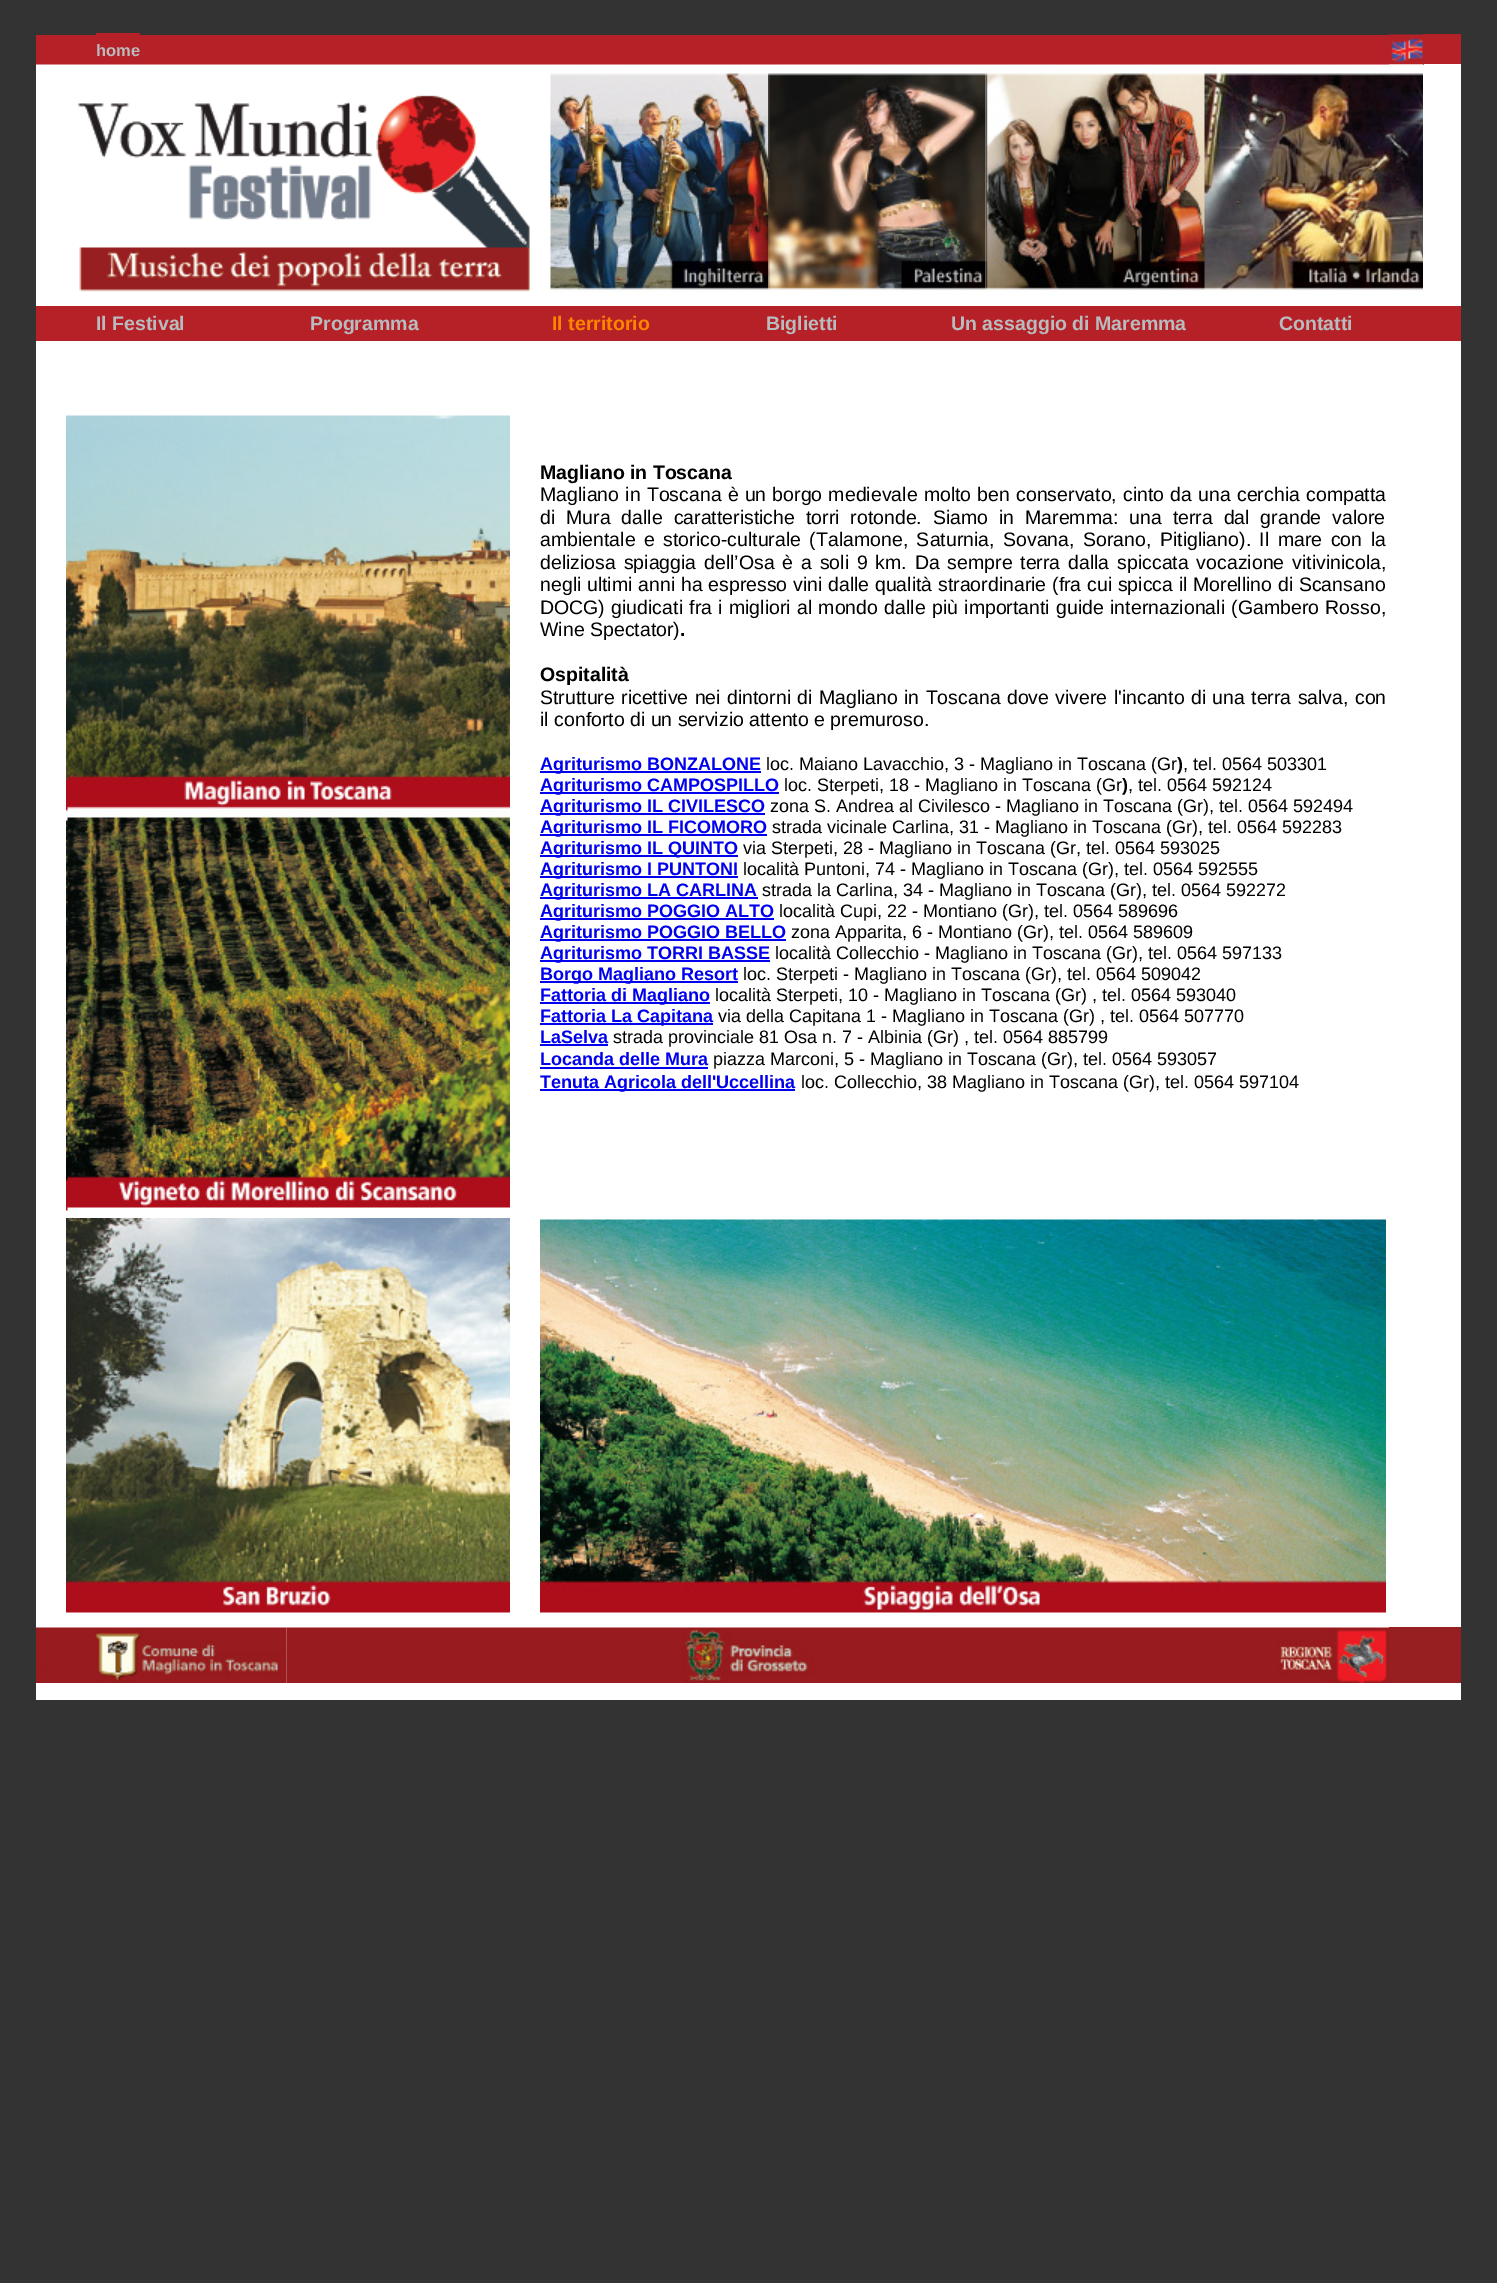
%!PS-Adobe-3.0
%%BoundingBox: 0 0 1497 2283
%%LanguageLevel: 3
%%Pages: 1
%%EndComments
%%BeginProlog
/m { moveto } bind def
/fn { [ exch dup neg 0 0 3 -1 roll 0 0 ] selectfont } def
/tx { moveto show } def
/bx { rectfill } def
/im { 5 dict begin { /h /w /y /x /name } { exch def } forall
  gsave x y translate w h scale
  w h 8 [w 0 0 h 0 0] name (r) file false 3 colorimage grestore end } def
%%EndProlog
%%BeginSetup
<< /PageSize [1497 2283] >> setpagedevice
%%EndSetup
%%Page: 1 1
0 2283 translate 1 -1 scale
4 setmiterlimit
0.2 setgray
0 0 1497 2283 bx
1 setgray
36 64 1425 1636 bx
0.71 0.129 0.149 setrgbcolor
36 35 1353 30 bx
/LiberationSans-Bold 16.5 fn
0.725 0.737 0.749 setrgbcolor
(home) 96 56 tx
0.71 0.129 0.149 setrgbcolor
96 33 44 2 bx
(image0.raw) 1389 34 34 31 im
1423 34 38 30 bx
(image1.raw) 36 64 515 228 im
(image2.raw) 550 64 218 229 im
(image3.raw) 768 64 218 228 im
(image4.raw) 985 64 221 228 im
(image5.raw) 1206 64 218 228 im
1 setgray
1423 73 1 217 bx
0.71 0.129 0.149 setrgbcolor
36 306 1425 35 bx
/LiberationSans-Bold 19.5 fn
0.725 0.737 0.749 setrgbcolor
(Il Festival) 96 330 tx
(Programma) 310 330 tx
1 0.522 0 setrgbcolor
(Il territorio) 552 330 tx
0.725 0.737 0.749 setrgbcolor
(Biglietti) 766 330 tx
(Un assaggio di Maremma) 951 330 tx
(Contatti) 1279 330 tx
(image6.raw) 66 415 444 803 im
0 setgray
(Magliano in Toscana) 540 479 tx
/LiberationSans-Regular 19.5 fn
540 501 m 0.75 0 32 (Magliano in Toscana è un borgo medievale molto ben conservato, cinto da una cerchia compatta) widthshow
540 524 m 5.5 0 32 (di Mura dalle caratteristiche torri rotonde. Siamo in Maremma: una terra dal grande valore) widthshow
540 546 m 3.1 0 32 (ambientale e storico-culturale \(Talamone, Saturnia, Sovana, Sorano, Pitigliano\). Il mare con la) widthshow
540 569 m 2.4 0 32 (deliziosa spiaggia dell’Osa è a soli 9 km. Da sempre terra dalla spiccata vocazione vitivinicola,) widthshow
540 591 m 0.3 0 32 (negli ultimi anni ha espresso vini dalle qualità straordinarie \(fra cui spicca il Morellino di Scansano) widthshow
540 614 m 0.9 0 32 (DOCG\) giudicati fra i migliori al mondo dalle più importanti guide internazionali \(Gambero Rosso,) widthshow
(Wine Spectator\)) 540 636 tx
/LiberationSans-Bold 19.5 fn
(.) 680 636 tx
(Ospitalità) 540 681 tx
/LiberationSans-Regular 19.5 fn
540 704 m 0.9 0 32 (Strutture ricettive nei dintorni di Magliano in Toscana dove vivere l'incanto di una terra salva, con) widthshow
(il conforto di un servizio attento e premuroso.) 540 726 tx
0 0 0.933 setrgbcolor
540 771 221 2 bx
/LiberationSans-Bold 18 fn
(Agriturismo BONZALONE) 540 770 tx
/LiberationSans-Regular 18 fn
0 setgray
(loc. Maiano Lavacchio, 3 - Magliano in Toscana \(Gr) 766 770 tx
/LiberationSans-Bold 18 fn
(\)) 1177 770 tx
/LiberationSans-Regular 18 fn
(, tel. 0564 503301) 1183 770 tx
0 0 0.933 setrgbcolor
540 792 239 2 bx
/LiberationSans-Bold 18 fn
(Agriturismo CAMPOSPILLO) 540 791 tx
/LiberationSans-Regular 18 fn
0 setgray
(loc. Sterpeti, 18 - Magliano in Toscana \(Gr) 784 791 tx
/LiberationSans-Bold 18 fn
(\)) 1122 791 tx
/LiberationSans-Regular 18 fn
(, tel. 0564 592124) 1128 791 tx
0 0 0.933 setrgbcolor
540 813 225 2 bx
/LiberationSans-Bold 18 fn
(Agriturismo IL CIVILESCO) 540 812 tx
/LiberationSans-Regular 18 fn
0 setgray
(zona S. Andrea al Civilesco - Magliano in Toscana \(Gr\), tel. 0564 592494) 770 812 tx
0 0 0.933 setrgbcolor
540 834 227 2 bx
/LiberationSans-Bold 18 fn
(Agriturismo IL FICOMORO) 540 833 tx
/LiberationSans-Regular 18 fn
0 setgray
(strada vicinale Carlina, 31 - Magliano in Toscana \(Gr\), tel. 0564 592283) 772 833 tx
0 0 0.933 setrgbcolor
540 855 198 2 bx
/LiberationSans-Bold 18 fn
(Agriturismo IL QUINTO) 540 854 tx
/LiberationSans-Regular 18 fn
0 setgray
(via Sterpeti, 28 - Magliano in Toscana \(Gr, tel. 0564 593025) 743 854 tx
0 0 0.933 setrgbcolor
540 876 198 2 bx
/LiberationSans-Bold 18 fn
(Agriturismo I PUNTONI) 540 875 tx
/LiberationSans-Regular 18 fn
0 setgray
(località Puntoni, 74 - Magliano in Toscana \(Gr\), tel. 0564 592555) 743 875 tx
0 0 0.933 setrgbcolor
540 897 218 2 bx
/LiberationSans-Bold 18 fn
(Agriturismo LA CARLINA) 540 896 tx
/LiberationSans-Regular 18 fn
0 setgray
(strada la Carlina, 34 - Magliano in Toscana \(Gr\), tel. 0564 592272) 762 896 tx
0 0 0.933 setrgbcolor
540 918 234 2 bx
/LiberationSans-Bold 18 fn
(Agriturismo POGGIO ALTO) 540 917 tx
/LiberationSans-Regular 18 fn
0 setgray
(località Cupi, 22 - Montiano \(Gr\), tel. 0564 589696) 779 917 tx
0 0 0.933 setrgbcolor
540 939 246 2 bx
/LiberationSans-Bold 18 fn
(Agriturismo POGGIO BELLO) 540 938 tx
/LiberationSans-Regular 18 fn
0 setgray
(zona Apparita, 6 - Montiano \(Gr\), tel. 0564 589609) 791 938 tx
0 0 0.933 setrgbcolor
540 960 230 2 bx
/LiberationSans-Bold 18 fn
(Agriturismo TORRI BASSE) 540 959 tx
/LiberationSans-Regular 18 fn
0 setgray
(località Collecchio - Magliano in Toscana \(Gr\), tel. 0564 597133) 775 959 tx
0 0 0.933 setrgbcolor
540 981 198 2 bx
/LiberationSans-Bold 18 fn
(Borgo Magliano Resort) 540 980 tx
/LiberationSans-Regular 18 fn
0 setgray
(loc. Sterpeti - Magliano in Toscana \(Gr\), tel. 0564 509042) 743 980 tx
0 0 0.933 setrgbcolor
540 1002 170 2 bx
/LiberationSans-Bold 18 fn
(Fattoria di Magliano) 540 1001 tx
/LiberationSans-Regular 18 fn
0 setgray
(località Sterpeti, 10 - Magliano in Toscana \(Gr\) , tel. 0564 593040) 715 1001 tx
0 0 0.933 setrgbcolor
540 1023 173 2 bx
/LiberationSans-Bold 18 fn
(Fattoria La Capitana) 540 1022 tx
/LiberationSans-Regular 18 fn
0 setgray
(via della Capitana 1 - Magliano in Toscana \(Gr\) , tel. 0564 507770) 718 1022 tx
/LiberationSans-Bold 18 fn
0 0 0.933 setrgbcolor
(LaSelva) 540 1043 tx
540 1044 68 2 bx
/LiberationSans-Regular 18 fn
0 setgray
(strada provinciale 81 Osa n. 7 - Albinia \(Gr\) , tel. 0564 885799) 613 1043 tx
/LiberationSans-Bold 18 fn
0 0 0.933 setrgbcolor
(Locanda delle Mura) 540 1065 tx
540 1067 168 2 bx
/LiberationSans-Regular 18 fn
0 setgray
(piazza Marconi, 5 - Magliano in Toscana \(Gr\), tel. 0564 593057) 713 1065 tx
0 0 0.933 setrgbcolor
540 1089 255 2 bx
/LiberationSans-Bold 18 fn
(Tenuta Agricola dell'Uccellina) 540 1088 tx
/LiberationSans-Regular 18 fn
0 setgray
(loc. Collecchio, 38 Magliano in Toscana \(Gr\), tel. 0564 597104) 801 1088 tx
(image7.raw) 66 1218 444 395 im
(image8.raw) 540 1219 846 394 im
(image9.raw) 36 1627 251 56 im
(image10.raw) 286 1627 920 56 im
(image11.raw) 1206 1627 183 56 im
0.596 0.122 0.129 setrgbcolor
1389 1627 72 56 bx
showpage
%%EOF
